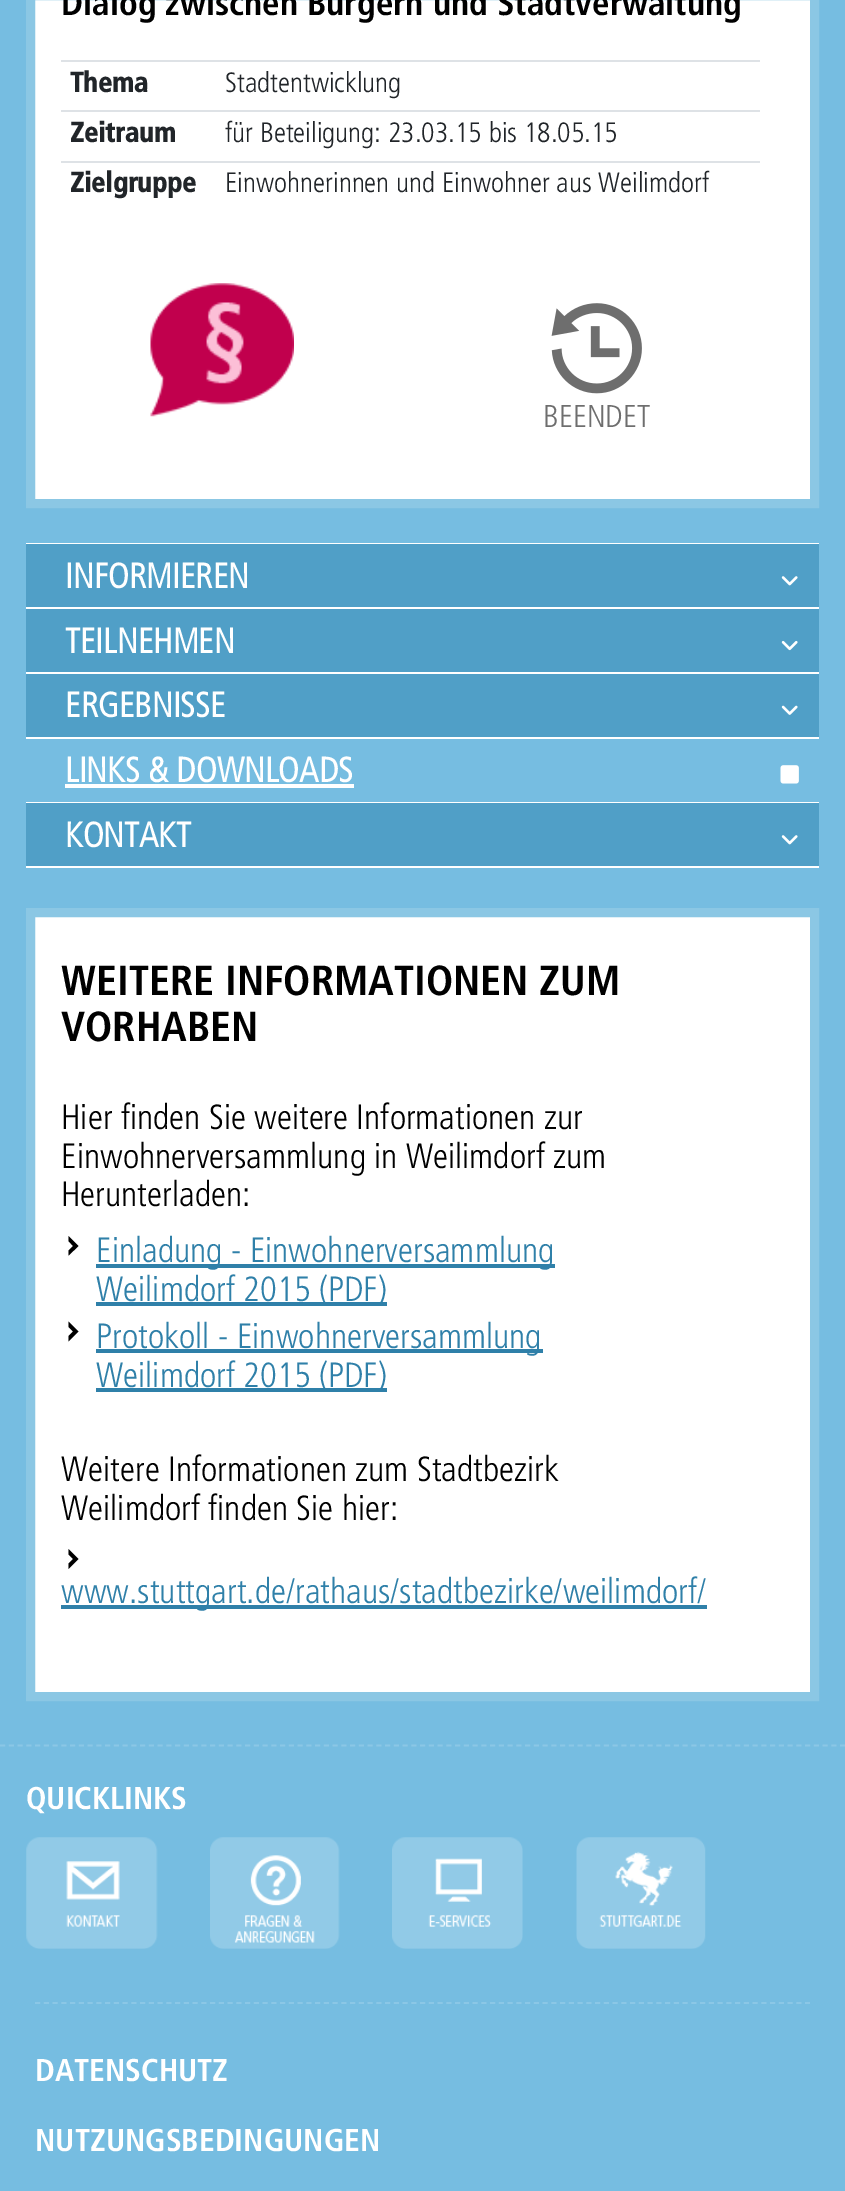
%!PS-Adobe-3.0
%%BoundingBox: 0 0 845 2191
%%LanguageLevel: 3
%%Pages: 1
%%EndComments
%%BeginProlog
/m { moveto } bind def
/l { lineto } bind def
/h { closepath } bind def
/f { fill } bind def
/S { stroke } bind def
/q { gsave } bind def
/Q { grestore } bind def
/w { setlinewidth } bind def
/fn { [ exch dup neg 0 0 3 -1 roll 0 0 ] selectfont } def
/tx { moveto show } def
/bx { rectfill } def
/im { 5 dict begin { /h /w /y /x /name } { exch def } forall
  gsave x y translate w h scale
  w h 8 [w 0 0 h 0 0] name (r) file false 3 colorimage grestore end } def
%%EndProlog
%%BeginSetup
<< /PageSize [845 2191] >> setpagedevice
%%EndSetup
%%Page: 1 1
0 2191 translate 1 -1 scale
4 setmiterlimit
0.463 0.741 0.882 setrgbcolor
0 0 845 2191 bx
1 setgray
30.5 -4.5 m 814.5 -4.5 l 814.5 503.5 l 30.5 503.5 l h q f Q
0.545 0.78 0.894 setrgbcolor
9 w
S
/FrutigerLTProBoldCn-Regular 35 fn
0 setgray
(Dialog zwischen Bürgern und Stadtverwaltung) 61 15 tx
/FrutigerLTProBoldCn-Bold 28 fn
0.129 0.145 0.161 setrgbcolor
(Thema) 70 92 tx
0.871 0.886 0.902 setrgbcolor
61 60 699 2 bx
/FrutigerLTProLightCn-Regular 28 fn
0.129 0.145 0.161 setrgbcolor
(Stadtentwicklung) 225 92 tx
/FrutigerLTProBoldCn-Bold 28 fn
(Zeitraum) 70 142 tx
0.871 0.886 0.902 setrgbcolor
61 110 699 2 bx
/FrutigerLTProLightCn-Regular 28 fn
0.129 0.145 0.161 setrgbcolor
(für Beteiligung: 23.03.15 bis 18.05.15) 225 142 tx
/FrutigerLTProBoldCn-Bold 28 fn
(Zielgruppe) 70 192 tx
0.871 0.886 0.902 setrgbcolor
61 161 699 2 bx
/FrutigerLTProLightCn-Regular 28 fn
0.129 0.145 0.161 setrgbcolor
(Einwohnerinnen und Einwohner aus Weilimdorf) 225 192 tx
(image0.raw) 150 283 144 134 im
(image1.raw) 551 303 91 91 im
/FrutigerLTProLightCn-Regular 31.5 fn
0.431 setgray
(BEENDET) 543 427 tx
1 setgray
26 543 793 1 bx
0.314 0.624 0.78 setrgbcolor
26 544 793 63 bx
/FrutigerLTProLightCn-Bold 35 fn
1 setgray
(INFORMIEREN) 65 588 tx
(image2.raw) 781 576 17 10 im
26 607 793 2 bx
0.314 0.624 0.78 setrgbcolor
26 609 793 63 bx
1 setgray
(TEILNEHMEN) 65 653 tx
(image3.raw) 781 640 17 11 im
26 672 793 2 bx
0.314 0.624 0.78 setrgbcolor
26 674 793 63 bx
1 setgray
(ERGEBNISSE) 65 717 tx
(image4.raw) 781 705 17 10 im
26 737 793 2 bx
(LINKS & DOWNLOADS) 65 782 tx
65 784 289 4 bx
(image5.raw) 780 765 19 19 im
26 802 793 1 bx
26 866 793 2 bx
0.314 0.624 0.78 setrgbcolor
26 803 793 63 bx
1 setgray
(KONTAKT) 65 847 tx
(image2.raw) 781 835 17 10 im
30.5 912.5 m 814.5 912.5 l 814.5 1696.5 l 30.5 1696.5 l h q f Q
0.545 0.78 0.894 setrgbcolor
S
/FrutigerLTProBoldCn-Regular 42 fn
0 setgray
(WEITERE INFORMATIONEN ZUM) 61 995 tx
(VORHABEN) 61 1041 tx
/FrutigerLTProLightCn-Regular 35 fn
(Hier finden Sie weitere Informationen zur) 61 1129 tx
(Einwohnerversammlung in Weilimdorf zum) 61 1168 tx
(Herunterladen:) 61 1206 tx
68.5 1236 m 68.5 1241 l 73 1246 l 68.5 1250.5 l 68.5 1255.5 l 78.5 1246 l h f
0.184 0.502 0.663 setrgbcolor
96 1264 459 4 bx
(Einladung - Einwohnerversammlung) 96 1262 tx
96 1302 291 4 bx
(Weilimdorf 2015 \(PDF\)) 96 1301 tx
0 setgray
68.5 1321.5 m 68.5 1327 l 73 1331.5 l 68.5 1336 l 68.5 1341.5 l 78.5 1331.5 l h f
0.184 0.502 0.663 setrgbcolor
96 1349 447 4 bx
(Protokoll - Einwohnerversammlung) 96 1348 tx
96 1388 291 4 bx
(Weilimdorf 2015 \(PDF\)) 96 1387 tx
0 setgray
(Weitere Informationen zum Stadtbezirk) 61 1481 tx
(Weilimdorf finden Sie hier:) 61 1520 tx
68.5 1549 m 68.5 1554.5 l 73 1559 l 68.5 1563.5 l 68.5 1569 l 78.5 1559 l h f
0.184 0.502 0.663 setrgbcolor
61 1605 646 4 bx
(www.stuttgart.de/rathaus/stadtbezirke/weilimdorf/) 61 1603 tx
0.545 0.78 0.902 setrgbcolor
1.8 w
[5.25 3.5] 0 setdash
0 1745.5 m 845 1745.5 l S
/FrutigerLTProBoldCn-Regular 31.5 fn
1 setgray
(QUICKLINKS) 26 1809 tx
(image6.raw) 26 1837 132 112 im
(image7.raw) 210 1837 130 112 im
(image8.raw) 392 1837 131 112 im
(image9.raw) 576 1837 130 112 im
0.545 0.78 0.902 setrgbcolor
35 2003 m 810 2003 l S
1 setgray
(DATENSCHUTZ) 35 2081 tx
(NUTZUNGSBEDINGUNGEN) 35 2151 tx
showpage
%%EOF
